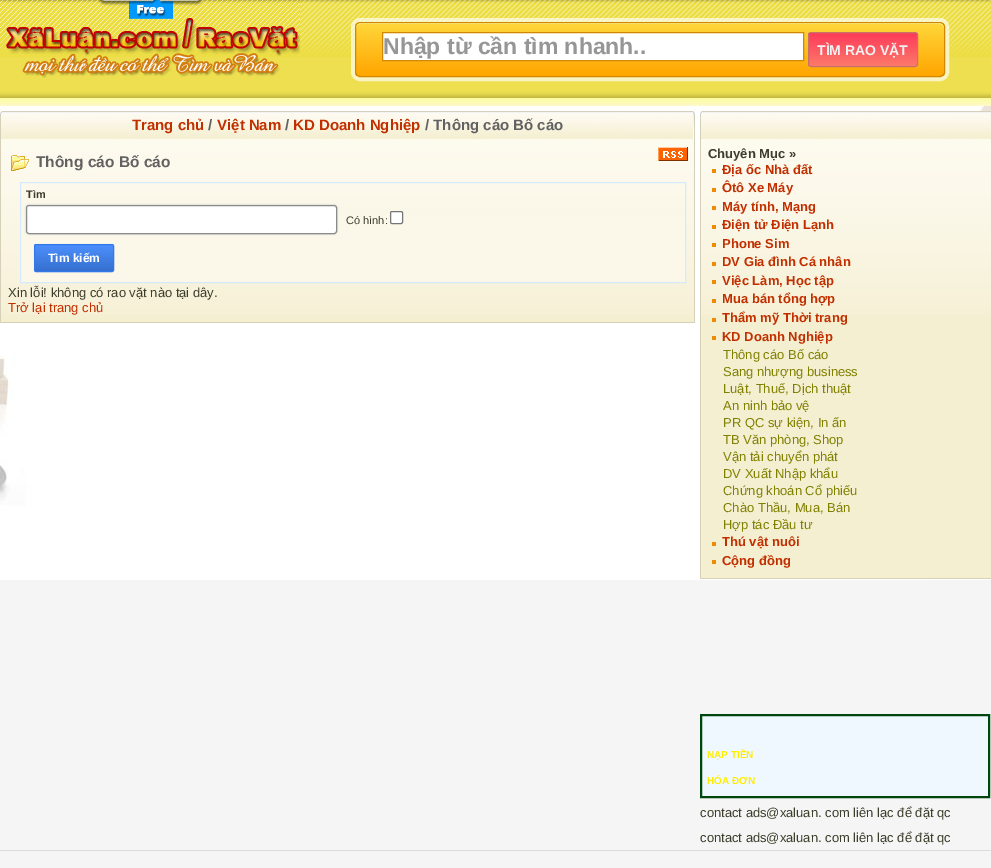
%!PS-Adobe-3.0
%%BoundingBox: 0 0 991 868
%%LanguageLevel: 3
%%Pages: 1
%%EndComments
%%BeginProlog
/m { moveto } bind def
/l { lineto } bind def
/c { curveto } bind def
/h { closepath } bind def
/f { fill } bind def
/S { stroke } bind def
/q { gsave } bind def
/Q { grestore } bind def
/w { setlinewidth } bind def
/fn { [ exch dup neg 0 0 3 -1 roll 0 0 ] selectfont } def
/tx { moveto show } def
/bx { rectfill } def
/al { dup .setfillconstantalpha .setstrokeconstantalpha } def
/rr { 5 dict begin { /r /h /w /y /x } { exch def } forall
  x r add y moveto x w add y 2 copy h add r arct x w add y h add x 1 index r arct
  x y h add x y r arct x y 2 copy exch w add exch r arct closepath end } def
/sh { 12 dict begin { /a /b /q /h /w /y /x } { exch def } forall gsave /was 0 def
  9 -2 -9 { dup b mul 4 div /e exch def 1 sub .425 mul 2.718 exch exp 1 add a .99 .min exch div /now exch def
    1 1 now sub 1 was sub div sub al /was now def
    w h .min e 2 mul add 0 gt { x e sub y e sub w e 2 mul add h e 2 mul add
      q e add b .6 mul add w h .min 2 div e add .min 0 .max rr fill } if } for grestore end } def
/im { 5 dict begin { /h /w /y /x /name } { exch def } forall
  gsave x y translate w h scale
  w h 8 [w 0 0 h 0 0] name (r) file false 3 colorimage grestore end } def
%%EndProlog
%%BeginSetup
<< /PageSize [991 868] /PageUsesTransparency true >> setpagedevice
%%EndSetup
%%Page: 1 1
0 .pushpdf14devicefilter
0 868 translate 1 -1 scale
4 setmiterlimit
0.961 setgray
0 0 991 868 bx
(image0.raw) 0 106 991 474 im
(image1.raw) 0 0 991 106 im
(image2.raw) 0 0 300 78 im
(image3.raw) 98 0 105 19 im
0.65 al
1 setgray
4 w
353 20 594 59 7 rr S
q
355 22 590 55 5 rr clip newpath
1 al
q 355 23 m 945 23 l 945 76 l 355 76 l h clip newpath
<< /ShadingType 2 /ColorSpace /DeviceRGB /Coords [356 23 356 76] /Extend [true true] /Function << /FunctionType 2 /Domain [0 1] /C0 [1 0.843 0.227] /C1 [1 0.647 0] /N 1 >> >> shfill Q
Q
1 al
1 1 0.565 setrgbcolor
360 24 m 940 24 l 942 24 944 26 944 28 c 944 27 l 944 25 942 23 940 23 c 360 23 l 358 23 356 25 356 27 c 356 28 l 356 26 358 24 360 24 c h f
0.824 0.529 0.012 setrgbcolor
1 w
355.5 22.5 589 54 4.5 rr S
1 setgray
382.5 32.5 m 803.5 32.5 l 803.5 60.5 l 382.5 60.5 l h q f Q
0.824 0.529 0.012 setrgbcolor
S
/LiberationSans-Bold 23 fn
0.588 setgray
(Nhập từ cần tìm nhanh..) 383 54 tx
q
808 32 110 35 3 rr clip newpath
q 808 33 m 918 33 l 918 66 l 808 66 l h clip newpath
<< /ShadingType 2 /ColorSpace /DeviceRGB /Coords [809 33 809 66] /Extend [true true] /Function << /FunctionType 2 /Domain [0 1] /C0 [0.996 0.227 0.353] /C1 [0.988 0.475 0.416] /N 1 >> >> shfill Q
Q
0.788 0.443 0.408 setrgbcolor
808.5 32.5 109 34 2.5 rr S
/LiberationSans-Bold 14 fn
0.949 setgray
(TÌM RAO VẶT) 817 55 tx
(image4.raw) 0 111 693 28 im
(image5.raw) 693 111 2 28 im
/LiberationSans-Bold 15 fn
0.757 0.184 0 setrgbcolor
(Trang chủ) 132 130 tx
0.38 setgray
(/) 208 130 tx
0.757 0.184 0 setrgbcolor
(Việt Nam) 217 130 tx
0.38 setgray
(/) 285 130 tx
0.757 0.184 0 setrgbcolor
(KD Doanh Nghiệp) 293 130 tx
0.38 setgray
(/ Thông cáo Bố cáo) 425 130 tx
0.839 0.816 0.722 setrgbcolor
0 139 1 182 bx
694 139 1 182 bx
0.957 0.937 0.82 setrgbcolor
1 315 693 6 bx
(image6.raw) 1 139 693 176 im
(image7.raw) 11 154 18 17 im
/LiberationSans-Bold 15.5 fn
0.38 setgray
(Thông cáo Bố cáo) 36 167 tx
(image8.raw) 658 147 30 14 im
0.984 0.973 0.918 setrgbcolor
21 215 664 67 bx
0.835 0.918 1 setrgbcolor
20.5 182.5 665 100 rectstroke
/LiberationSans-Bold 11 fn
0.239 0.239 0.173 setrgbcolor
(Tìm) 26 198 tx
0.745 setgray
26 205 311 29 3 1 1 sh
1 setgray
26.5 205.5 310 28 2.5 rr q f Q
0.545 setgray
S
/LiberationSans-Regular 11 fn
0.239 0.239 0.173 setrgbcolor
(Có hình:) 346 224 tx
1 setgray
390.5 211.5 12 12 1.5 rr q f Q
0.463 setgray
S
0.894 setgray
34 244 80 28 2 0.5 1 sh
q
34 244 80 28 2 rr clip newpath
q 34 245 m 114 245 l 114 271 l 34 271 l h clip newpath
<< /ShadingType 2 /ColorSpace /DeviceRGB /Coords [74 245 74 271] /Extend [true true] /Function << /FunctionType 2 /Domain [0 1] /C0 [0.298 0.561 0.992] /C1 [0.208 0.439 0.812] /N 1 >> >> shfill Q
Q
0.188 0.475 0.929 setrgbcolor
34.5 244.5 79 27 1.5 rr S
/LiberationSans-Bold 12 fn
1 setgray
(Tìm kiếm) 48 262 tx
/LiberationSans-Regular 13 fn
0.239 0.239 0.173 setrgbcolor
(Xin lỗi! không có rao vặt nào tại dây.) 8 297 tx
0.757 0.184 0 setrgbcolor
(Trở lại trang chủ) 8 312 tx
(image9.raw) 0 321 695 2 im
0.847 0.824 0.722 setrgbcolor
694 321 1 1 bx
(image10.raw) 700 111 291 28 im
0.839 0.816 0.722 setrgbcolor
700 139 1 438 bx
0.957 0.937 0.82 setrgbcolor
701 315 290 262 bx
(image11.raw) 701 139 290 176 im
/LiberationSans-Bold 13 fn
0.239 0.239 0.173 setrgbcolor
(Chuyên Mục ») 708 158 tx
0.929 0.549 0.008 setrgbcolor
712 169 4 4 bx
0.757 0.184 0 setrgbcolor
(Địa ốc Nhà đất) 722 174 tx
0.929 0.549 0.008 setrgbcolor
712 188 4 4 bx
0.757 0.184 0 setrgbcolor
(Ôtô Xe Máy) 722 192 tx
0.929 0.549 0.008 setrgbcolor
712 206 4 4 bx
0.757 0.184 0 setrgbcolor
(Máy tính, Mạng) 722 211 tx
0.929 0.549 0.008 setrgbcolor
712 225 4 4 bx
0.757 0.184 0 setrgbcolor
(Điện tử Điện Lạnh) 722 229 tx
0.929 0.549 0.008 setrgbcolor
712 243 4 4 bx
0.757 0.184 0 setrgbcolor
(Phone Sim) 722 248 tx
0.929 0.549 0.008 setrgbcolor
712 262 4 4 bx
0.757 0.184 0 setrgbcolor
(DV Gia đình Cá nhân) 722 266 tx
0.929 0.549 0.008 setrgbcolor
712 280 4 4 bx
0.757 0.184 0 setrgbcolor
(Việc Làm, Học tập) 722 285 tx
0.929 0.549 0.008 setrgbcolor
712 299 4 4 bx
0.757 0.184 0 setrgbcolor
(Mua bán tổng hợp) 722 303 tx
0.929 0.549 0.008 setrgbcolor
712 318 4 4 bx
0.757 0.184 0 setrgbcolor
(Thẩm mỹ Thời trang) 722 322 tx
0.929 0.549 0.008 setrgbcolor
712 336 4 4 bx
0.757 0.184 0 setrgbcolor
(KD Doanh Nghiệp) 722 341 tx
/LiberationSans-Regular 13 fn
0.502 0.502 0 setrgbcolor
(Thông cáo Bố cáo) 723 359 tx
(Sang nhượng business) 723 376 tx
(Luật, Thuế, Dịch thuật) 723 393 tx
(An ninh bảo vệ) 723 410 tx
(PR QC sự kiện, In ấn) 723 427 tx
(TB Văn phòng, Shop) 723 444 tx
(Vận tải chuyển phát) 723 461 tx
(DV Xuất Nhập khẩu) 723 478 tx
(Chứng khoán Cổ phiếu) 723 495 tx
(Chào Thầu, Mua, Bán) 723 512 tx
(Hợp tác Đầu tư) 723 529 tx
0.929 0.549 0.008 setrgbcolor
712 542 4 4 bx
/LiberationSans-Bold 13 fn
0.757 0.184 0 setrgbcolor
(Thú vật nuôi) 722 546 tx
0.929 0.549 0.008 setrgbcolor
712 560 4 4 bx
0.757 0.184 0 setrgbcolor
(Cộng đồng) 722 565 tx
(image12.raw) 700 577 291 2 im
0.941 0.973 1 setrgbcolor
701 715 m 989 715 l 989 797 l 701 797 l h q f Q
0 0.278 0.051 setrgbcolor
2 w
S
/LiberationSans-Bold 10 fn
1 0.929 0 setrgbcolor
(NẠP TIỀN) 707 758 tx
(HÓA ĐƠN) 707 784 tx
/LiberationSans-Regular 13 fn
0.239 0.239 0.173 setrgbcolor
(contact ads@xaluan. com liên lạc để đặt qc) 700 817 tx
(contact ads@xaluan. com liên lạc để đặt qc) 700 842 tx
0.867 setgray
0 850 991 1 bx
.poppdf14devicefilter showpage
%%EOF
